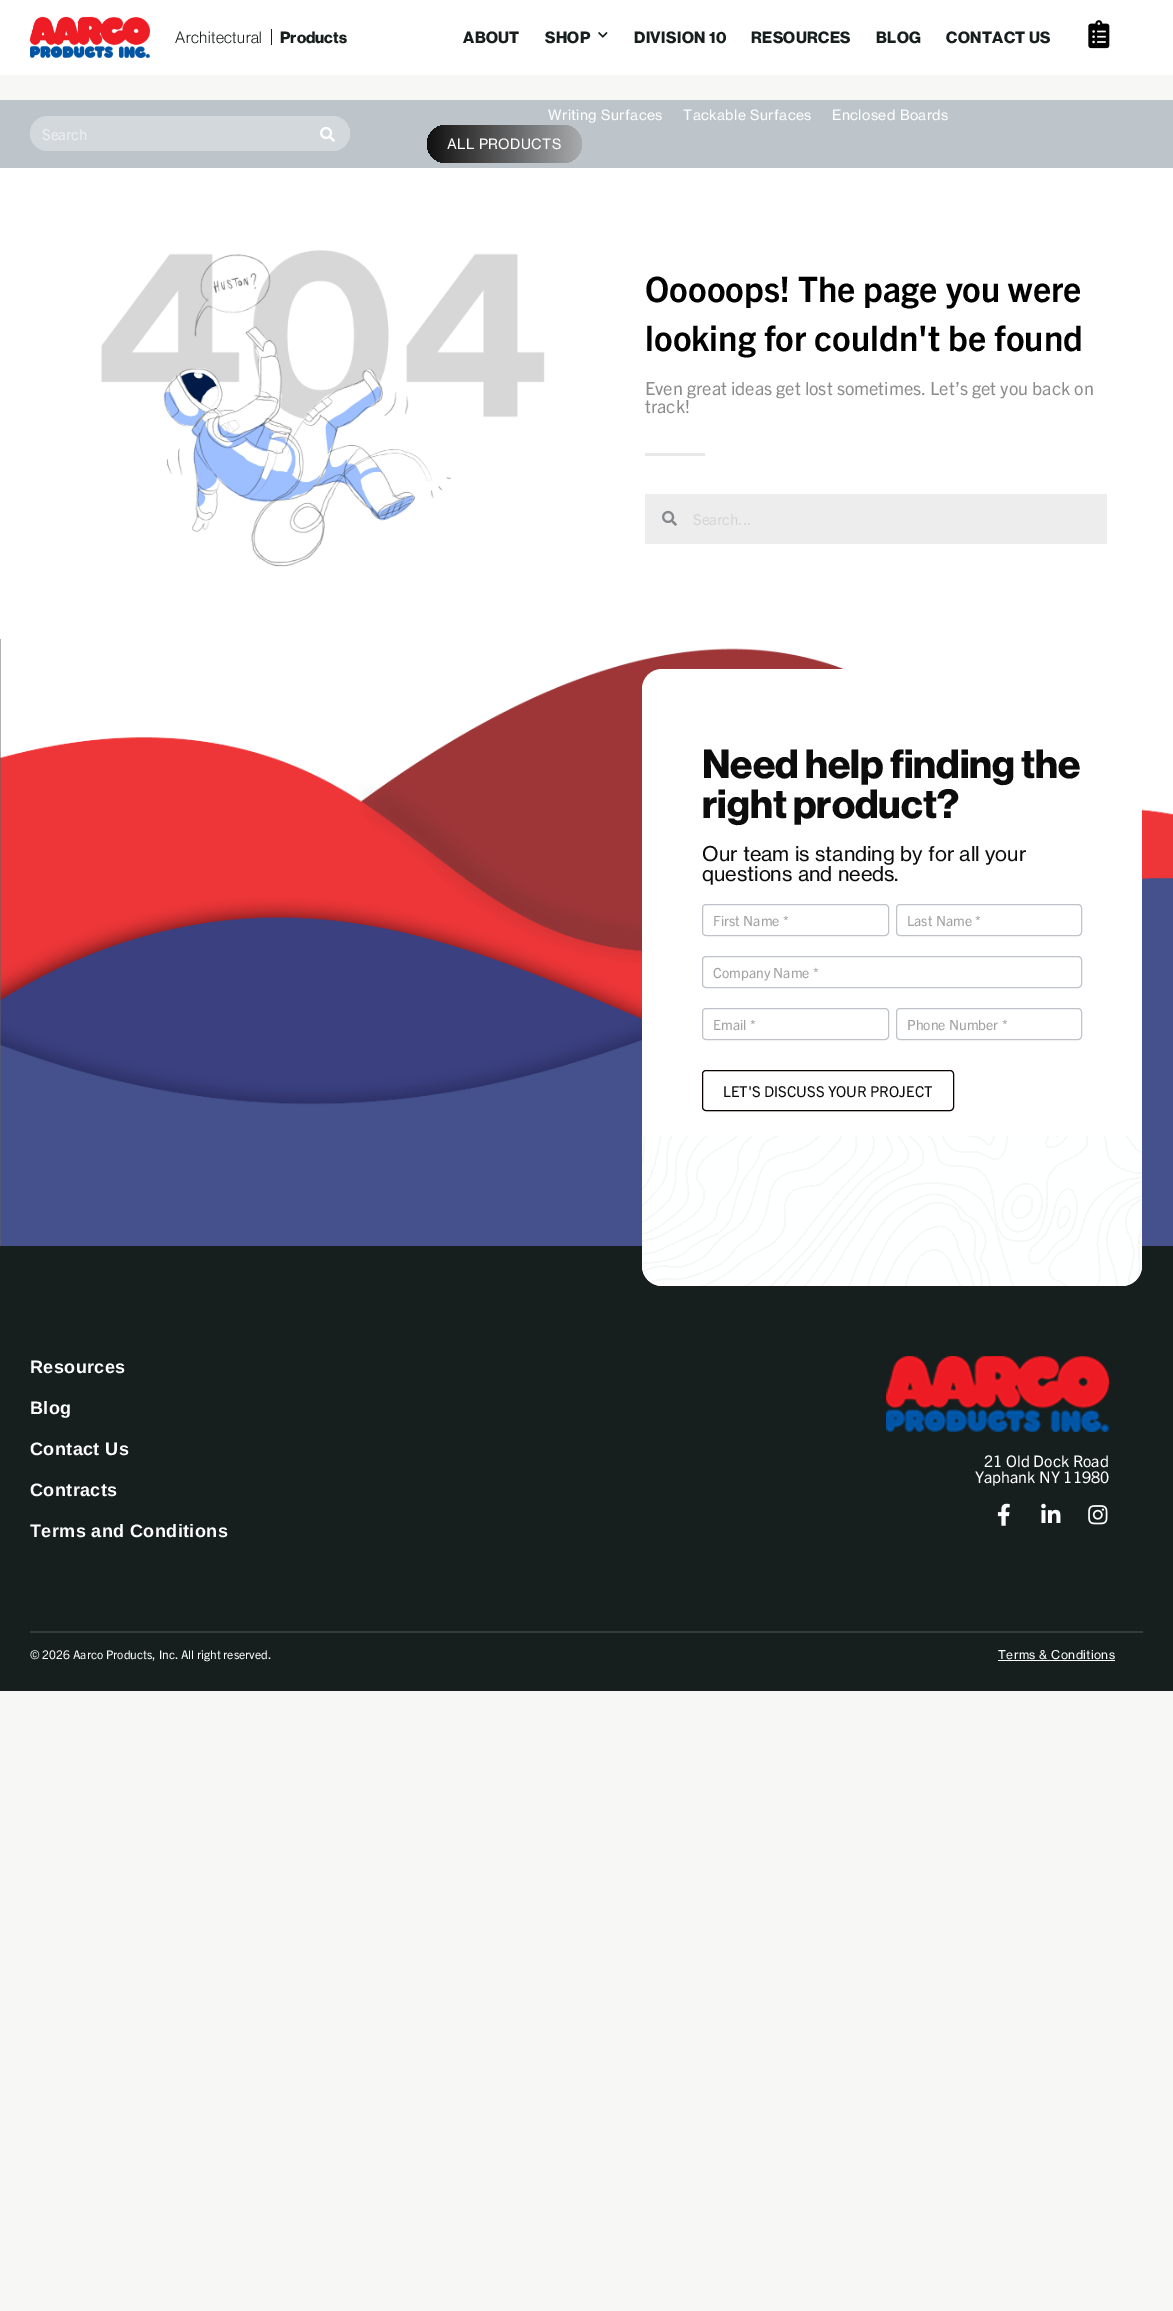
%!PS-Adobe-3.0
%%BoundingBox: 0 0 1173 2311
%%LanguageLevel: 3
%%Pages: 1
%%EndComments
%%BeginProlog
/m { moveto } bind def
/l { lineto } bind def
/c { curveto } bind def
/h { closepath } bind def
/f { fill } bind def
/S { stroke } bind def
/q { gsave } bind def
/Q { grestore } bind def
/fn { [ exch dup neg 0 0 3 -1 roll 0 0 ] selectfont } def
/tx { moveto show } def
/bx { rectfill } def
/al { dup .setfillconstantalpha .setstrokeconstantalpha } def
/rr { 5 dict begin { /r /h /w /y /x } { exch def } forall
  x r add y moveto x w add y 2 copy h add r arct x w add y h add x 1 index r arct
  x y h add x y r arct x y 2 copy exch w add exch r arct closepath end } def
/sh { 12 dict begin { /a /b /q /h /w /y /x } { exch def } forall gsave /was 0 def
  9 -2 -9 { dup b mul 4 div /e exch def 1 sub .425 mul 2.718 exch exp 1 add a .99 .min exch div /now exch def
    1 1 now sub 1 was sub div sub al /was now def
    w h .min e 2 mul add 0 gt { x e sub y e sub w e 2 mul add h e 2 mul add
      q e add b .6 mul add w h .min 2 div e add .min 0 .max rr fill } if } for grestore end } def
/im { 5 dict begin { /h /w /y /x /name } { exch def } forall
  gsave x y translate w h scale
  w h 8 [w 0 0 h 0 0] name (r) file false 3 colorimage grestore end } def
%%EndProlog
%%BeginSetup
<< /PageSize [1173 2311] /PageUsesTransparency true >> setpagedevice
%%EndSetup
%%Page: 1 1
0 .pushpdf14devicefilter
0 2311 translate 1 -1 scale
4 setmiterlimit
0.969 0.969 0.961 setrgbcolor
0 0 1173 2311 bx
1 setgray
0 0 1173 75 bx
(image0.raw) 30 16 120 42 im
/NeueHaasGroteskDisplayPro-Regular 16 fn
0.086 0.122 0.118 setrgbcolor
175 43 m 0.4 0 (Architectural) ashow
271 29 1 16 bx
/NeueHaasGroteskDisplayPro-Bold 16 fn
(Products) 280 43 tx
463 43 m 0.4 0 (ABOUT) ashow
545 43 m 0.4 0 (SHOP) ashow
(image1.raw) 598 32 10 6 im
634 43 m 0.4 0 (DIVISION 10) ashow
751 43 m 0.4 0 (RESOURCES) ashow
876 43 m 0.4 0 (BLOG) ashow
946 43 m 0.4 0 (CONTACT US) ashow
(image2.raw) 1088 20 22 29 im
0.741 0.773 0.796 setrgbcolor
0 100 1173 68 bx
0.827 0.847 0.867 setrgbcolor
30 116 320 35 17.5 rr f
/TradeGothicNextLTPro-Regular 15 fn
0.929 0.937 0.945 setrgbcolor
(Search) 42 140 tx
0.827 0.847 0.867 setrgbcolor
305 116 m 332.5 116 l 342 116 350 124 350 133.5 c 350 143 342 151 332.5 151 c 305 151 l h f
(image3.raw) 320 127 15 15 im
/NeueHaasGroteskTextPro-Regular 14 fn
1 setgray
548 120 m 0.4 0 (Writing Surfaces) ashow
683 120 m 0.4 0 (Tackable Surfaces) ashow
832 120 m 0.4 0 (Enclosed Boards) ashow
q 427 125 155 38 19 rr clip newpath
<< /ShadingType 2 /ColorSpace /DeviceRGB /Coords [427 144 582 144] /Extend [true true] /Function << /FunctionType 2 /Domain [0 1] /C0 [0.063 0.063 0.063] /C1 [0.667 0.671 0.675] /N 1 >> >> shfill Q
447 149 m 0.4 0 (ALL PRODUCTS) ashow
0 168 1173 471 bx
(image4.raw) 101 250 444 317 im
/TradeGothicNextLTPro-Bold 35 fn
0 setgray
(Ooooops! The page you were) 645 302 tx
(looking for couldn't be found) 645 351 tx
/TradeGothicNextLTPro-Regular 18 fn
0.549 setgray
(Even great ideas get lost sometimes. Let’s get you back on) 645 395 tx
(track!) 645 413 tx
0.91 setgray
645 453 60 3 bx
0.929 setgray
645 494 462 50 bx
(image5.raw) 662 510 15 16 im
/TradeGothicNextLTPro-Regular 15 fn
0.831 setgray
(Search...) 693 525 tx
(image6.raw) 0 639 1173 607 im
0.086 0.122 0.118 setrgbcolor
0 1246 1173 445 bx
1 setgray
642 669 500 617 20 rr f
(image7.raw) 642 1136 500 150 im
/NeueHaasGroteskDisplayPro-Bold 40 fn
0.047 setgray
(Need help finding the) 702 778 tx
(right product?) 702 818 tx
/NeueHaasGroteskTextPro-Regular 20 fn
(Our team is standing by for all your) 702 861 tx
(questions and needs.) 702 881 tx
0.749 0.765 0.784 setrgbcolor
702.5 904.5 186 31 3.5 rr S
/TradeGothicNextLTPro-Regular 14 fn
0.631 setgray
(First Name *) 713 926 tx
0.749 0.765 0.784 setrgbcolor
896.5 904.5 185 31 3.5 rr S
0.631 setgray
(Last Name *) 907 926 tx
0.749 0.765 0.784 setrgbcolor
702.5 956.5 379 31 3.5 rr S
0.631 setgray
(Company Name *) 713 978 tx
0.749 0.765 0.784 setrgbcolor
702.5 1008.5 186 31 3.5 rr S
0.631 setgray
(Email *) 713 1030 tx
0.749 0.765 0.784 setrgbcolor
896.5 1008.5 185 31 3.5 rr S
0.631 setgray
(Phone Number *) 907 1030 tx
q
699 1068 m 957 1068 l 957 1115 l 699 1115 l h 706 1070 m 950 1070 l 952 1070 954 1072 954 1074 c 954 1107 l 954 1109 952 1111 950 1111 c 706 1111 l 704 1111 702 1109 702 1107 c 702 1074 l 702 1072 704 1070 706 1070 c h eoclip newpath
0.933 setgray
702 1071 252 41 4 0.5 1 sh
Q
0.039 0.004 0.004 setrgbcolor
702.5 1070.5 251 40 3.5 rr S
/TradeGothicNextLTPro-Regular 15 fn
0.047 setgray
(LET'S DISCUSS YOUR PROJECT) 723 1097 tx
/LiberationSans-Bold 18 fn
1 setgray
30 1373 m 0.4 0 (Resources) ashow
30 1414 m 0.4 0 (Blog) ashow
30 1455 m 0.4 0 (Contact Us) ashow
30 1496 m 0.4 0 (Contracts) ashow
30 1537 m 0.4 0 (Terms and Conditions) ashow
(image8.raw) 886 1356 223 76 im
/TradeGothicNextLTPro-Regular 16 fn
(21 Old Dock Road) 984 1467 tx
(Yaphank NY 11980) 975 1483 tx
(image9.raw) 997 1503 13 23 im
(image10.raw) 1041 1503 20 20 im
(image11.raw) 1088 1505 20 20 im
0.2 0.231 0.227 setrgbcolor
30 1631 1113 2 bx
/TradeGothicNextLTPro-Regular 12 fn
1 setgray
(© 2026 Aarco Products, Inc. All right reserved.) 30 1659 tx
/NeueHaasGroteskTextPro-Regular 12 fn
998 1659 m 0.4 0 (Terms & Conditions) ashow
998 1660 117 1 bx
.poppdf14devicefilter showpage
%%EOF
